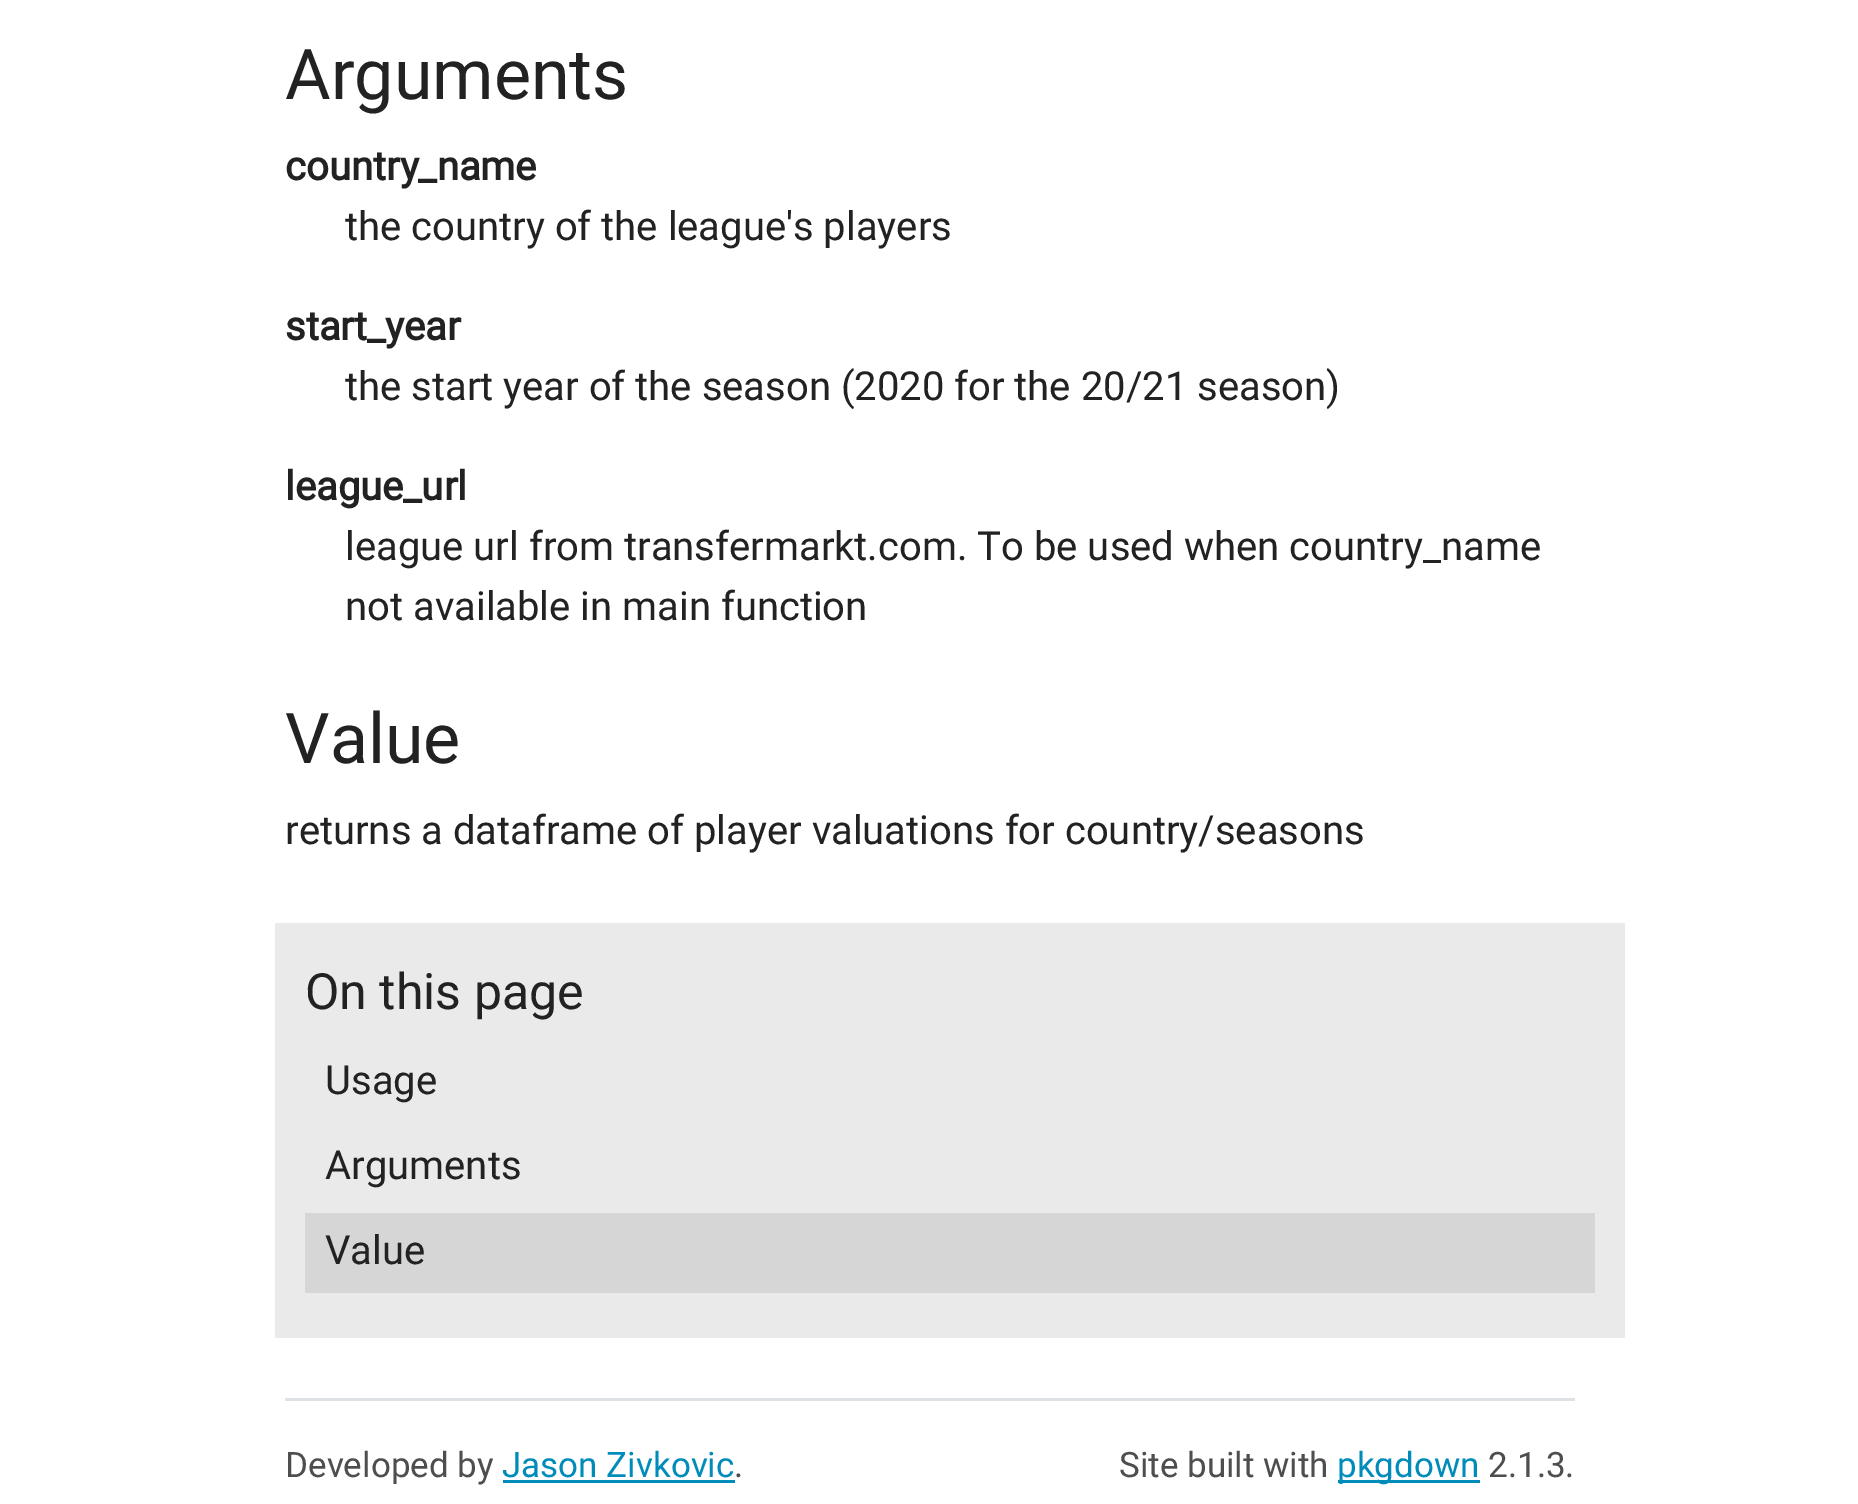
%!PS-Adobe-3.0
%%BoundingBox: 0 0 1858 1504
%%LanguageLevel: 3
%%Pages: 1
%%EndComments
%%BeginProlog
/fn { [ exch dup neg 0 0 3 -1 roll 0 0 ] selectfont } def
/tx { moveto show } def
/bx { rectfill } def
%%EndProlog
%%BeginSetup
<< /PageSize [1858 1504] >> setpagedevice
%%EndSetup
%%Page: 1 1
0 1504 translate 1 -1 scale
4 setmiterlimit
1 setgray
0 0 1858 1504 bx
/Roboto-Regular 70 fn
0.133 setgray
(Arguments) 285 99 tx
/Roboto-Bold 40 fn
(country_name) 285 180 tx
/Roboto-Regular 40 fn
(the country of the league's players) 345 240 tx
/Roboto-Bold 40 fn
(start_year) 285 340 tx
/Roboto-Regular 40 fn
(the start year of the season \(2020 for the 20/21 season\)) 345 400 tx
/Roboto-Bold 40 fn
(league_url) 285 500 tx
/Roboto-Regular 40 fn
(league url from transfermarkt.com. To be used when country_name) 345 560 tx
(not available in main function) 345 620 tx
/Roboto-Regular 70 fn
(Value) 285 763 tx
/Roboto-Regular 40 fn
(returns a dataframe of player valuations for country/seasons) 285 844 tx
0.918 setgray
275 923 1350 415 bx
/Roboto-Regular 50 fn
0.133 setgray
(On this page) 305 1009 tx
/Roboto-Regular 40 fn
(Usage) 325 1094 tx
(Arguments) 325 1179 tx
0.839 setgray
305 1213 1290 80 bx
0.133 setgray
(Value) 325 1264 tx
0.871 0.886 0.902 setrgbcolor
285 1398 1290 3 bx
/Roboto-Regular 35 fn
0.306 setgray
(Developed by) 285 1477 tx
0 0.549 0.729 setrgbcolor
(Jason Zivkovic) 502 1477 tx
503 1480 232 3 bx
0.306 setgray
(.) 734 1477 tx
(Site built with) 1119 1477 tx
0 0.549 0.729 setrgbcolor
1338 1480 142 3 bx
(pkgdown) 1337 1477 tx
0.306 setgray
(2.1.3.) 1488 1477 tx
showpage
%%EOF
